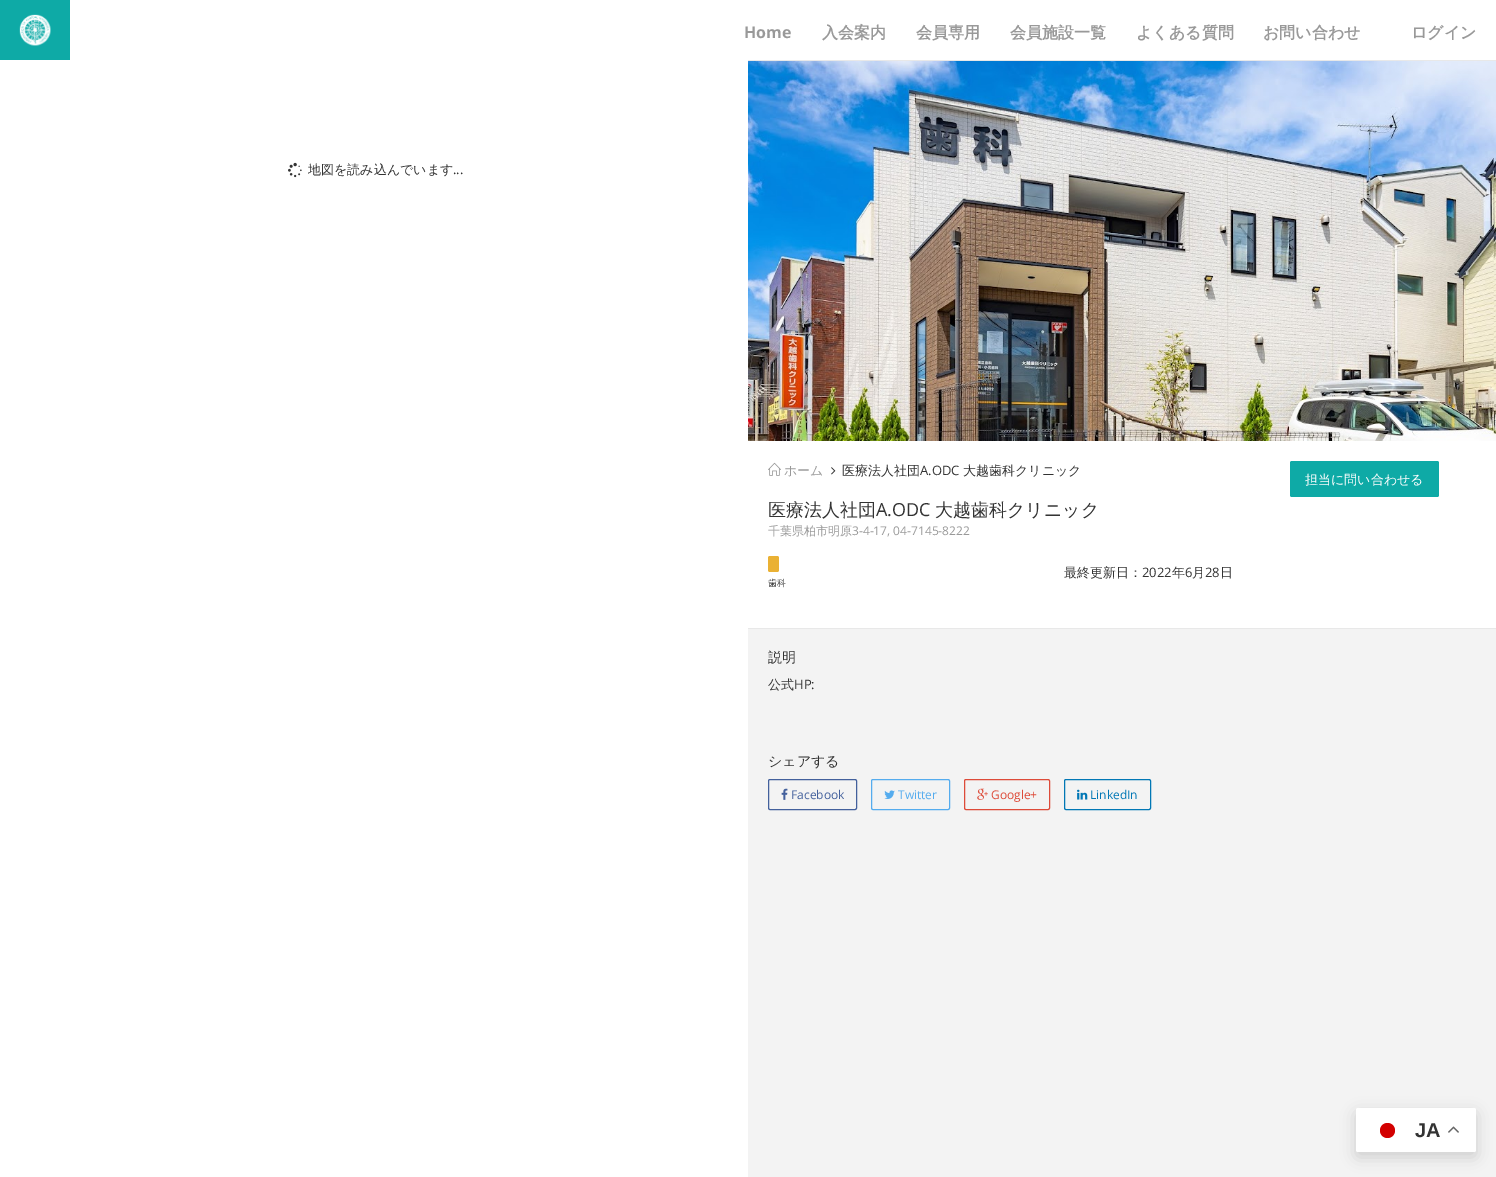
%!PS-Adobe-3.0
%%BoundingBox: 0 0 1496 1177
%%LanguageLevel: 3
%%Pages: 1
%%EndComments
%%BeginProlog
/f { fill } bind def
/S { stroke } bind def
/fn { [ exch dup neg 0 0 3 -1 roll 0 0 ] selectfont } def
/tx { moveto show } def
/bx { rectfill } def
/al { dup .setfillconstantalpha .setstrokeconstantalpha } def
/ci { newpath 0 360 arc closepath } def
/rr { 5 dict begin { /r /h /w /y /x } { exch def } forall
  x r add y moveto x w add y 2 copy h add r arct x w add y h add x 1 index r arct
  x y h add x y r arct x y 2 copy exch w add exch r arct closepath end } def
/sh { 12 dict begin { /a /b /q /h /w /y /x } { exch def } forall gsave /was 0 def
  9 -2 -9 { dup b mul 4 div /e exch def 1 sub .425 mul 2.718 exch exp 1 add a .99 .min exch div /now exch def
    1 1 now sub 1 was sub div sub al /was now def
    w h .min e 2 mul add 0 gt { x e sub y e sub w e 2 mul add h e 2 mul add
      q e add b .6 mul add w h .min 2 div e add .min 0 .max rr fill } if } for grestore end } def
/im { 5 dict begin { /h /w /y /x /name } { exch def } forall
  gsave x y translate w h scale
  w h 8 [w 0 0 h 0 0] name (r) file false 3 colorimage grestore end } def
%%EndProlog
%%BeginSetup
<< /PageSize [1496 1177] /PageUsesTransparency true >> setpagedevice
%%EndSetup
%%Page: 1 1
0 .pushpdf14devicefilter
0 1177 translate 1 -1 scale
4 setmiterlimit
1 setgray
0 0 1496 1177 bx
0.055 0.667 0.651 setrgbcolor
0 0 70 60 bx
(image0.raw) 19 14 32 32 im
/OpenSans-Bold 16 fn
0.6 setgray
(Home) 744 38 tx
/WenQuanYiZenHei-Bold 16 fn
(入会案内) 822 38 tx
(会員専用) 916 38 tx
(会員施設一覧) 1010 38 tx
(よくある質問) 1136 38 tx
(お問い合わせ) 1263 38 tx
(ログイン) 1411 38 tx
(image1.raw) 288 162 14 16 im
/WenQuanYiZenHei-Medium 13 fn
0.2 setgray
(地図を読み込んでいます) 308 174 tx
/OpenSans-Regular 13 fn
(...) 453 174 tx
0.953 setgray
748 629 748 548 bx
0.91 setgray
748 60 748 1 bx
748 628 748 1 bx
(image2.raw) 748 61 748 380 im
(image3.raw) 768 462 13 14 im
/WenQuanYiZenHei-Medium 13 fn
0.6 setgray
(ホーム) 784 475 tx
(image4.raw) 831 467 5 8 im
0.2 setgray
(医療法人社団) 842 475 tx
/OpenSans-Regular 13 fn
(A.ODC) 920 475 tx
/WenQuanYiZenHei-Medium 13 fn
(大越歯科クリニック) 963 475 tx
/WenQuanYiZenHei-Medium 18 fn
(医療法人社団) 768 516 tx
/OpenSans-Regular 18 fn
(A.ODC) 876 516 tx
/WenQuanYiZenHei-Medium 18 fn
(大越歯科クリニック) 935 516 tx
/WenQuanYiZenHei-Medium 12 fn
0.6 setgray
(千葉県柏市明原) 768 535 tx
/OpenSans-Regular 12 fn
(3-4-17, 04-7145-8222) 852 535 tx
/WenQuanYiZenHei-Medium 13 fn
0.2 setgray
(最終更新日：) 1064 577 tx
/OpenSans-Regular 13 fn
(2022) 1142 577 tx
/WenQuanYiZenHei-Medium 13 fn
(年) 1172 577 tx
/OpenSans-Regular 13 fn
(6) 1185 577 tx
/WenQuanYiZenHei-Medium 13 fn
(月) 1192 577 tx
/OpenSans-Regular 13 fn
(28) 1205 577 tx
/WenQuanYiZenHei-Medium 13 fn
(日) 1220 577 tx
0.918 0.694 0.204 setrgbcolor
768 556 11 16 2 rr f
/WenQuanYiZenHei-Medium 9 fn
0.2 setgray
(歯科) 768 586 tx
0.055 0.667 0.651 setrgbcolor
1290 461 149 36 2 rr f
/WenQuanYiZenHei-Medium 13 fn
1 setgray
(担当に問い合わせる) 1305 484 tx
/WenQuanYiZenHei-Medium 14 fn
0.2 setgray
(説明) 768 662 tx
/WenQuanYiZenHei-Medium 13 fn
(公式) 768 689 tx
/OpenSans-Regular 13 fn
(HP:) 794 689 tx
/WenQuanYiZenHei-Medium 14 fn
(シェアする) 768 766 tx
0.263 0.376 0.612 setrgbcolor
768.5 779.5 88 30 1.5 rr S
(image5.raw) 781 788 7 12 im
/OpenSans-Regular 12 fn
(Facebook) 791 799 tx
0.333 0.675 0.933 setrgbcolor
871.5 779.5 78 30 1.5 rr S
(image6.raw) 884 790 11 9 im
(Twitter) 898 799 tx
0.867 0.294 0.224 setrgbcolor
964.5 779.5 85 30 1.5 rr S
(image7.raw) 977 788 11 12 im
(Google+) 991 799 tx
0.004 0.467 0.71 setrgbcolor
1064.5 779.5 86 30 1.5 rr S
(image8.raw) 1077 789 11 11 im
(LinkedIn) 1090 799 tx
0 setgray
1356 1113 120 44 2 7.5 0.15 sh
1 setgray
1356 1108 120 44 2 rr f
0.827 0 0 setrgbcolor
1387.5 1130.5 7.5 ci f
/LiberationSans-Bold 20 fn
0.2 setgray
(JA) 1415 1137 tx
(image9.raw) 1448 1126 11 7 im
.poppdf14devicefilter showpage
%%EOF
